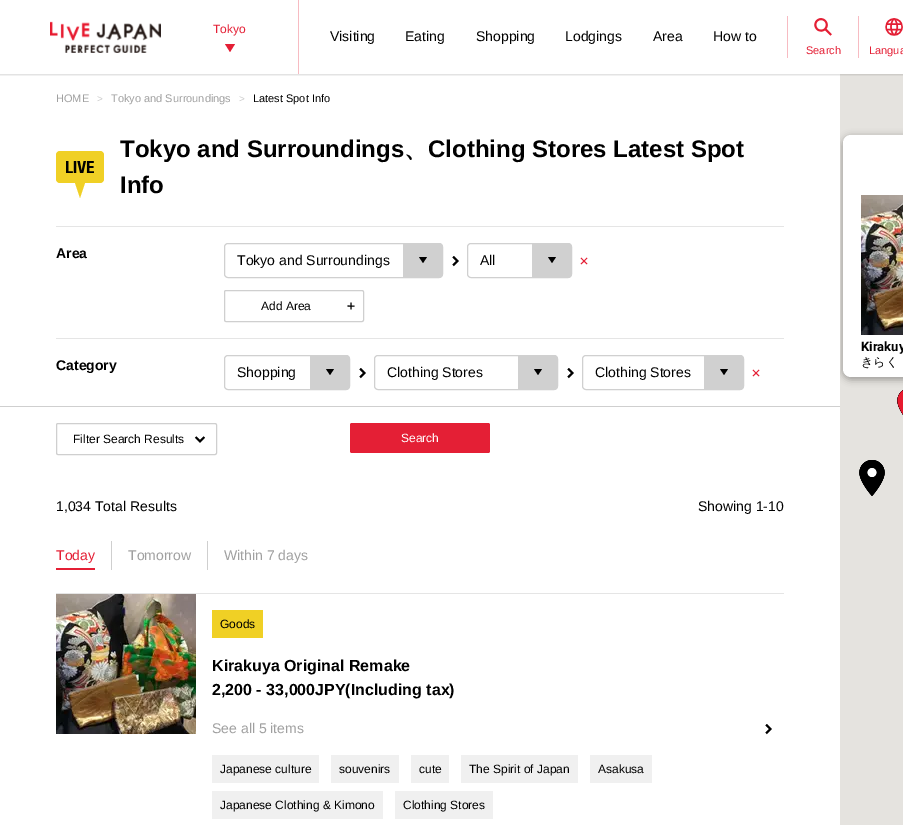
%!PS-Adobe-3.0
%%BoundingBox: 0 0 903 825
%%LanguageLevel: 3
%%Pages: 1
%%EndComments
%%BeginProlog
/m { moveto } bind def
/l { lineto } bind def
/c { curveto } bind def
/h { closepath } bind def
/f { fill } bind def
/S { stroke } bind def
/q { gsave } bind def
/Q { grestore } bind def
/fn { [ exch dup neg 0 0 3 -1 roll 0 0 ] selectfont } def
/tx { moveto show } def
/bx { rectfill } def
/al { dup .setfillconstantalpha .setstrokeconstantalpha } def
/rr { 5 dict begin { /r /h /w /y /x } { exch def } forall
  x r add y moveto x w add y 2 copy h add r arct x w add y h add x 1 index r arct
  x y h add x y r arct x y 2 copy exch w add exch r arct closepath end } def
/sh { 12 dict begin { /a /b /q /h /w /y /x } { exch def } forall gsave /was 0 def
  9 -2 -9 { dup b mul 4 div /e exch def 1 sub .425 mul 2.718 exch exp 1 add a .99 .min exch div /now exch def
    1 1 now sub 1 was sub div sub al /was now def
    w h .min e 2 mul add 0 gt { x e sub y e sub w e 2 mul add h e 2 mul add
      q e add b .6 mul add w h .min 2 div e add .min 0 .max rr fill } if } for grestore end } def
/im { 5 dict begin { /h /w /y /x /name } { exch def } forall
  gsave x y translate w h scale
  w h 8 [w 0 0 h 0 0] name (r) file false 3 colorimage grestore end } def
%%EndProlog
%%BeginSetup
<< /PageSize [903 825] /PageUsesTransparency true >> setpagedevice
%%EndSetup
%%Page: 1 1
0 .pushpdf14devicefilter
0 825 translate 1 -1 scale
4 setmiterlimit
1 setgray
0 0 903 825 bx
0.898 0.89 0.875 setrgbcolor
840 74 63 751 bx
q
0 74 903 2 rectclip
0.196 setgray
-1 -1 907 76 0 1 0.2 sh
Q
(image0.raw) 50 21 111 32 im
/LiberationSans-Regular 12 fn
0.894 0.122 0.208 setrgbcolor
(Tokyo) 213 33 tx
225 44 m 235 44 l 230 52 l h f
0.969 0.733 0.761 setrgbcolor
298 0 1 74 bx
/LiberationSans-Regular 14 fn
0 setgray
(Visiting) 330 41 tx
(Eating) 405 41 tx
(Shopping) 476 41 tx
(Lodgings) 565 41 tx
(Area) 653 41 tx
(How to) 713 41 tx
0.969 0.733 0.761 setrgbcolor
787 16 1 42 bx
(image1.raw) 814 18 18 18 im
/LiberationSans-Regular 11 fn
0.894 0.122 0.208 setrgbcolor
(Search) 806 54 tx
0.969 0.733 0.761 setrgbcolor
858 16 1 42 bx
(image2.raw) 885 18 18 18 im
0.894 0.122 0.208 setrgbcolor
(Langua) 869 54 tx
0.627 setgray
(HOME) 56 102 tx
/LiberationSans-Regular 10 fn
0.8 setgray
(>) 97 102 tx
/LiberationSans-Regular 11 fn
0.627 setgray
(Tokyo and Surroundings) 111 102 tx
/LiberationSans-Regular 10 fn
0.8 setgray
(>) 239 102 tx
/LiberationSans-Regular 11 fn
0 setgray
(Latest Spot Info) 253 102 tx
0.941 0.816 0.145 setrgbcolor
56 151 48 32 4 rr f
(image3.raw) 66 161 28 12 im
75 183 m 85 183 l 80 198 l h f
/LiberationSans-Bold 24 fn
0 setgray
(Tokyo and Surroundings) 120 157 tx
/WenQuanYiZenHei-Bold 24 fn
(、) 404 157 tx
/LiberationSans-Bold 24 fn
(Clothing Stores Latest Spot) 428 157 tx
(Info) 120 193 tx
0.898 setgray
56 226 728 1 bx
56 338 728 1 bx
/LiberationSans-Bold 14 fn
0 setgray
(Area) 56 258 tx
0.816 setgray
403 243 m 439 243 l 441 243 443 245 443 247 c 443 274 l 443 276 441 278 439 278 c 403 278 l h f
0 setgray
419 257 m 427 257 l 423 263 l h f
0.816 setgray
224.5 243.5 218 34 3.5 rr S
/LiberationSans-Regular 14 fn
0 setgray
(Tokyo and Surroundings) 237 265 tx
(image4.raw) 452 256 7 11 im
0.816 setgray
532 243 m 568 243 l 570 243 572 245 572 247 c 572 274 l 572 276 570 278 568 278 c 532 278 l h f
0 setgray
548 257 m 556 257 l 552 263 l h f
0.816 setgray
467.5 243.5 104 34 3.5 rr S
0 setgray
(All) 480 265 tx
(image5.raw) 580 257 8 8 im
0.812 setgray
224.5 290.5 139 31 1.5 rr S
/LiberationSans-Regular 12 fn
0 setgray
(Add Area) 261 310 tx
(image6.raw) 347 302 8 8 im
/LiberationSans-Bold 14 fn
(Category) 56 370 tx
0.816 setgray
310 355 m 346 355 l 348 355 350 357 350 359 c 350 386 l 350 388 348 390 346 390 c 310 390 l h f
0 setgray
326 369 m 334 369 l 330 375 l h f
0.816 setgray
224.5 355.5 125 34 3.5 rr S
/LiberationSans-Regular 14 fn
0 setgray
(Shopping) 237 377 tx
(image4.raw) 359 368 7 11 im
0.816 setgray
518 355 m 554 355 l 556 355 558 357 558 359 c 558 386 l 558 388 556 390 554 390 c 518 390 l h f
0 setgray
534 369 m 542 369 l 538 375 l h f
0.816 setgray
374.5 355.5 183 34 3.5 rr S
0 setgray
(Clothing Stores) 387 377 tx
(image4.raw) 567 368 7 11 im
0.816 setgray
704 355 m 740 355 l 742 355 744 357 744 359 c 744 386 l 744 388 742 390 740 390 c 704 390 l h f
0 setgray
720 369 m 728 369 l 724 375 l h f
0.816 setgray
582.5 355.5 161 34 3.5 rr S
0 setgray
(Clothing Stores) 595 377 tx
(image5.raw) 752 369 8 8 im
0.812 setgray
0 406 840 1 bx
56.5 423.5 160 31 1.5 rr S
/LiberationSans-Regular 12 fn
0 setgray
(Filter Search Results) 73 443 tx
(image7.raw) 194 436 11 7 im
0.894 0.122 0.208 setrgbcolor
350 423 140 30 2 rr f
1 setgray
(Search) 401 442 tx
/LiberationSans-Regular 14 fn
0 setgray
(1,034 Total Results) 56 511 tx
(Showing 1-10) 698 511 tx
0.812 setgray
111 541 1 29 bx
0.894 0.122 0.208 setrgbcolor
(Today) 56 560 tx
56 568 39 2 bx
0.812 setgray
207 541 1 29 bx
0.627 setgray
(Tomorrow) 128 560 tx
(Within 7 days) 224 560 tx
0.898 setgray
56 593 728 1 bx
(image8.raw) 56 594 140 140 im
0.941 0.816 0.145 setrgbcolor
212 610 51 28 bx
/LiberationSans-Regular 12 fn
0 setgray
(Goods) 220 628 tx
/LiberationSans-Bold 16 fn
(Kirakuya Original Remake) 212 671 tx
(2,200 - 33,000JPY\(Including tax\)) 212 695 tx
/LiberationSans-Regular 14 fn
0.627 setgray
(See all 5 items) 212 733 tx
0.941 setgray
212 755 107 28 bx
/LiberationSans-Regular 12 fn
0 setgray
(Japanese culture) 220 773 tx
0.941 setgray
331 755 68 28 bx
0 setgray
(souvenirs) 339 773 tx
0.941 setgray
411 755 38 28 bx
0 setgray
(cute) 419 773 tx
0.941 setgray
461 755 117 28 bx
0 setgray
(The Spirit of Japan) 469 773 tx
0.941 setgray
590 755 62 28 bx
0 setgray
(Asakusa) 598 773 tx
0.941 setgray
212 791 171 28 bx
0 setgray
(Japanese Clothing & Kimono) 220 809 tx
0.941 setgray
395 791 98 28 bx
0 setgray
(Clothing Stores) 403 809 tx
(image4.raw) 765 724 7 11 im
(image10.raw) 897 390 6 25 im
(image11.raw) 897 390 6 25 im
(image12.raw) 897 390 6 25 im
(image13.raw) 897 390 6 25 im
(image14.raw) 897 390 6 25 im
(image15.raw) 897 390 6 25 im
q
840 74 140 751 rectclip
842 136 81 244 9 3.5 0.3 sh
Q
1 setgray
843 135 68 242 8 rr f
(image9.raw) 861 195 42 140 im
/Roboto-Bold 13 fn
0 setgray
(Kirakuy) 861 351 tx
/WenQuanYiZenHei-Medium 12 fn
861 366 m -1 0 32 (きらく) widthshow
(image16.raw) 859 460 26 36 im
(image17.raw) 859 460 26 36 im
(image18.raw) 859 460 26 36 im
(image19.raw) 859 460 26 36 im
.poppdf14devicefilter showpage
%%EOF
